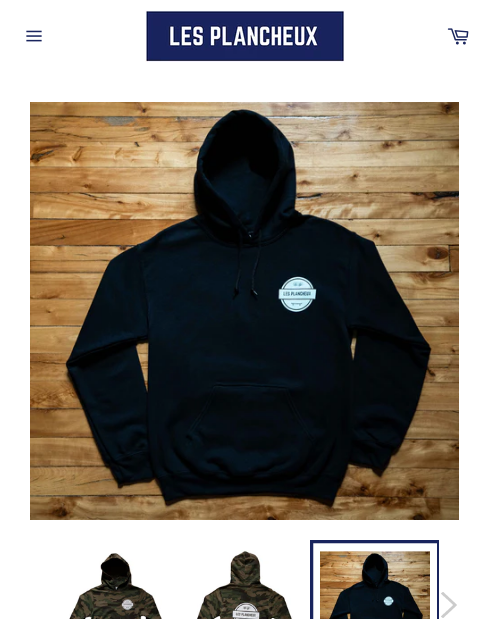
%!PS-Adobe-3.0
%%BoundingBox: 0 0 489 619
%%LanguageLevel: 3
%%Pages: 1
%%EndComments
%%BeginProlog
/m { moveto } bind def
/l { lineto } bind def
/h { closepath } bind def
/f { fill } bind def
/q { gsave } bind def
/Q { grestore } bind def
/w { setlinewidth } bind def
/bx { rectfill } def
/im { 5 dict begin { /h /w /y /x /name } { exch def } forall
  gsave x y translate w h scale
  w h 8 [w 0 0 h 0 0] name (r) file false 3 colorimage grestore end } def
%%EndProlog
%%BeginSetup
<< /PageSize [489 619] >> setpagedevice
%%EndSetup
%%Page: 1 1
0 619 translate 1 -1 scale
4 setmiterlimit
1 setgray
0 0 489 619 bx
(image0.raw) 26 30 16 12 im
(image1.raw) 145 10 200 52 im
(image2.raw) 447 28 22 17 im
(image3.raw) 30 102 429 418 im
(image4.raw) 69 553 93 66 im
(image5.raw) 197 550 96 69 im
(image6.raw) 320 551 110 68 im
q
50 540 389 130 rectclip
0.098 0.141 0.365 setrgbcolor
3 w
311.5 541.5 127 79 rectstroke
Q
0.8 setgray
441 593.5 m 443 592 l 457 605 l 443 618 l 441 616.5 l 453.5 605 l h f
showpage
%%EOF
